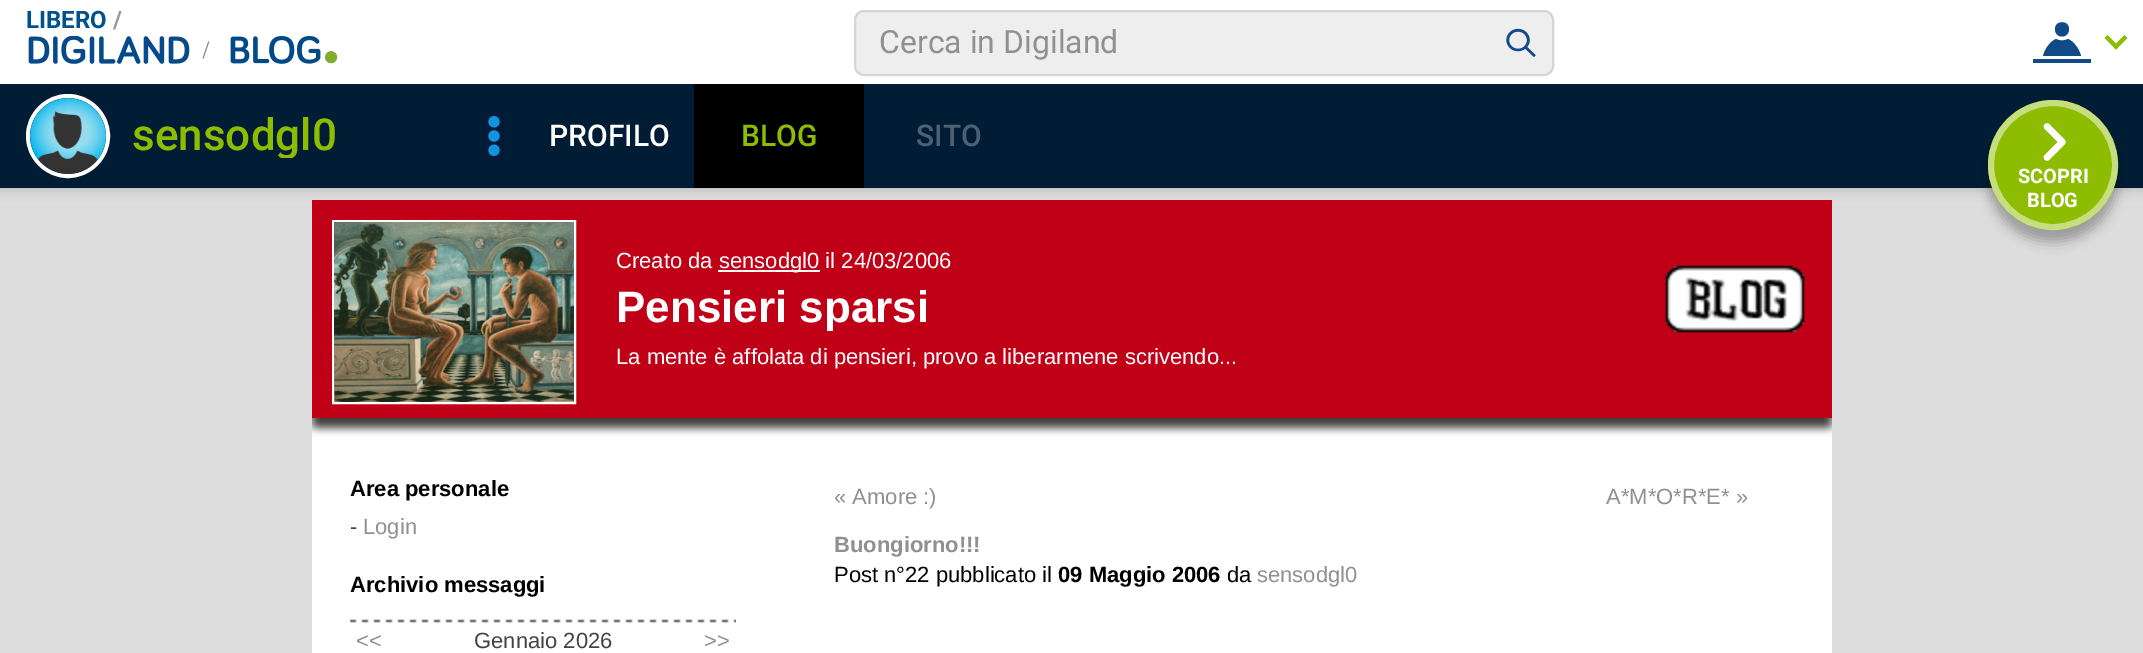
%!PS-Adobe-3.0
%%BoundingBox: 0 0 2143 653
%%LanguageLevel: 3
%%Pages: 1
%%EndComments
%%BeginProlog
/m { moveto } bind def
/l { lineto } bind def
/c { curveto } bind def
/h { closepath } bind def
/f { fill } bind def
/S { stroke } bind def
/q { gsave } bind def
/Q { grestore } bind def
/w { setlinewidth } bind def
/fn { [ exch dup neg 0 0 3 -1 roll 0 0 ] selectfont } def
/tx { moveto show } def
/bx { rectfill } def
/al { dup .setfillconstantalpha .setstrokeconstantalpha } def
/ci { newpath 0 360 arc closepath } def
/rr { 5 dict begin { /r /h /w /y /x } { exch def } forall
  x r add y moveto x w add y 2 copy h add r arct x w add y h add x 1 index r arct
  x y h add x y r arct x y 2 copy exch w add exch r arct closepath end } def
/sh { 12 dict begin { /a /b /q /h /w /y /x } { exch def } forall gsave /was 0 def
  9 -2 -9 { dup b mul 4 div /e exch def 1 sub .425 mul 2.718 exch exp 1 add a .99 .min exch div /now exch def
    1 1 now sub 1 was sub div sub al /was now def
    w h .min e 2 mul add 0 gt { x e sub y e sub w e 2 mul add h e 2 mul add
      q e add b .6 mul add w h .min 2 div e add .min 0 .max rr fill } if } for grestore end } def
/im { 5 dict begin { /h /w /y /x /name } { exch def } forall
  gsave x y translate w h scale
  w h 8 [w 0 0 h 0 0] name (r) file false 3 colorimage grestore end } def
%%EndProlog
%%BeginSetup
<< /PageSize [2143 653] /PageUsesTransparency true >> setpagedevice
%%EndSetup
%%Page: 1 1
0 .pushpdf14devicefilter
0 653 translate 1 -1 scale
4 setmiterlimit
0.867 setgray
0 0 2143 653 bx
0.753 0 0.086 setrgbcolor
312 200 1520 218 bx
0 setgray
0 0 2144 188 0 6 0.2 sh
1 setgray
0 0 2143 84 bx
/Roboto-Bold 24 fn
0 0.322 0.561 setrgbcolor
(LIBERO) 26 28 tx
0.6 setgray
(/) 113 28 tx
(image0.raw) 28 36 162 28 im
(image1.raw) 202 41 8 18 im
(image2.raw) 230 36 108 28 im
0.933 setgray
855 11 698 64 9 rr q f Q
0.835 setgray
2 w
S
/Roboto-Regular 32 fn
0.565 setgray
(Cerca in Digiland) 879 53 tx
(image3.raw) 1506 28 30 29 im
0.063 0.294 0.529 setrgbcolor
2033 63 m 2033 59 l 2091 59 l 2091 63 l h 2043 56 m 2045 48 2051 41 2056 39 c 2060 41 2064 41 2068 39 c 2073 41 2079 48 2081 56 c h 2055 29 m 2055 20 2069 20 2069 29 c 2069 39 2055 39 2055 29 c h f
0.557 0.737 0 setrgbcolor
2124.5 35 m 2127.5 38 l 2116 49.5 l 2113 46.5 l h f
2107.5 35 m 2119 46.5 l 2116 49.5 l 2104.5 38 l h f
0 0.114 0.208 setrgbcolor
0 84 2143 104 bx
1 setgray
4 w
68 136 40 ci S
(image4.raw) 30 98 76 76 im
q
132 114 204 44 rectclip
/Roboto-Medium 44 fn
0.557 0.737 0 setrgbcolor
(sensodgl0) 132 150 tx
Q
(image5.raw) 488 116 12 40 im
/Roboto-Medium 30 fn
(PROFILO) 549 146 tx
0 setgray
694 84 170 104 bx
0.557 0.737 0 setrgbcolor
(BLOG) 741 146 tx
0.302 0.38 0.447 setrgbcolor
(SITO) 916 146 tx
0 setgray
1988 112 130 130 65 6 0.3 sh
0.557 0.737 0 setrgbcolor
2053 165 65 ci f
0.5 al
1 setgray
6 w
2053 165 62 ci S
1 al
(image6.raw) 2043 123 23 38 im
/Roboto-Bold 20 fn
(SCOPRI) 2018 183 tx
(BLOG) 2027 207 tx
312 444 1520 209 bx
(image7.raw) 312 418 1520 26 im
2 w
333 221 242 182 rectstroke
(image8.raw) 334 222 240 180 im
/LiberationSans-Regular 22 fn
(Creato da) 616 268 tx
718 270 102 2 bx
(sensodgl0 il 24/03/2006) 719 268 tx
/LiberationSans-Bold 44 fn
(Pensieri sparsi) 616 322 tx
/LiberationSans-Regular 22 fn
(La mente è affolata di pensieri, provo a liberarmene scrivendo...) 616 364 tx
(image9.raw) 1665 265 140 68 im
/LiberationSans-Bold 22 fn
0 setgray
(Area personale) 350 496 tx
/LiberationSans-Regular 22 fn
0.263 setgray
(-) 350 534 tx
0.565 setgray
(Login) 363 534 tx
/LiberationSans-Bold 22 fn
0 setgray
(Archivio messaggi) 350 592 tx
(image10.raw) 350 619 386 4 im
/LiberationSans-Regular 22 fn
0.565 setgray
(<<) 356 648 tx
0.263 setgray
(Gennaio 2026) 474 648 tx
0.565 setgray
(>>) 704 648 tx
(« Amore :\)) 834 504 tx
(A*M*O*R*E* ») 1606 504 tx
/LiberationSans-Bold 22 fn
(Buongiorno!!!) 834 552 tx
/LiberationSans-Regular 22 fn
0 setgray
(Post n°22 pubblicato il) 834 582 tx
/LiberationSans-Bold 22 fn
(09 Maggio 2006) 1058 582 tx
/LiberationSans-Regular 22 fn
(da) 1227 582 tx
0.565 setgray
(sensodgl0) 1257 582 tx
.poppdf14devicefilter showpage
%%EOF
